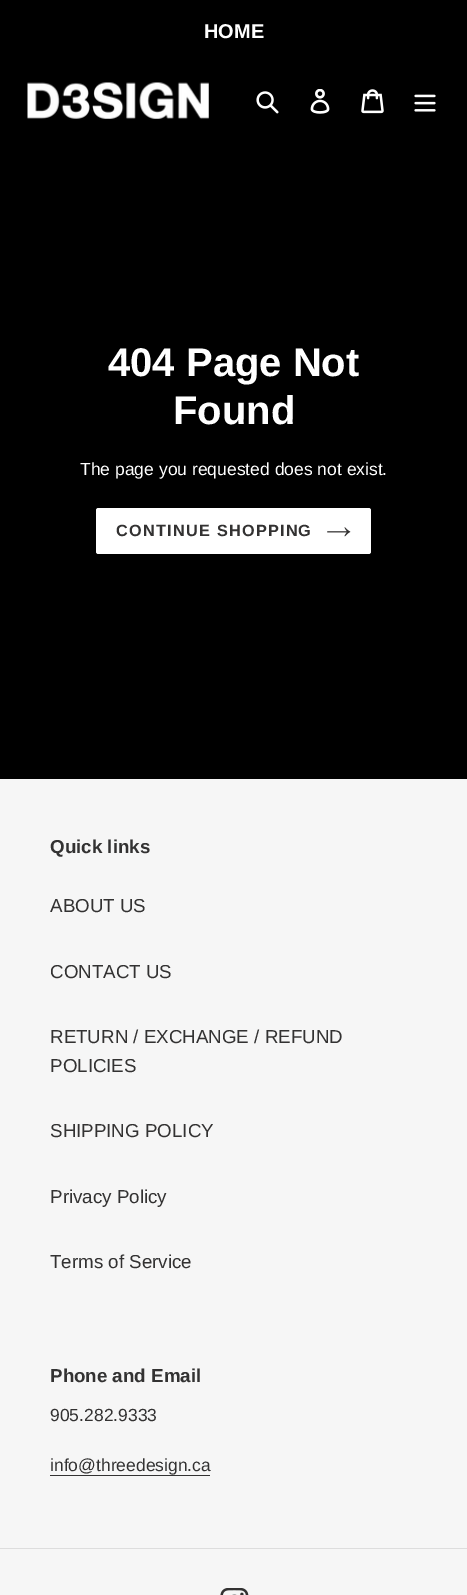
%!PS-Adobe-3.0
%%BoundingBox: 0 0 467 1595
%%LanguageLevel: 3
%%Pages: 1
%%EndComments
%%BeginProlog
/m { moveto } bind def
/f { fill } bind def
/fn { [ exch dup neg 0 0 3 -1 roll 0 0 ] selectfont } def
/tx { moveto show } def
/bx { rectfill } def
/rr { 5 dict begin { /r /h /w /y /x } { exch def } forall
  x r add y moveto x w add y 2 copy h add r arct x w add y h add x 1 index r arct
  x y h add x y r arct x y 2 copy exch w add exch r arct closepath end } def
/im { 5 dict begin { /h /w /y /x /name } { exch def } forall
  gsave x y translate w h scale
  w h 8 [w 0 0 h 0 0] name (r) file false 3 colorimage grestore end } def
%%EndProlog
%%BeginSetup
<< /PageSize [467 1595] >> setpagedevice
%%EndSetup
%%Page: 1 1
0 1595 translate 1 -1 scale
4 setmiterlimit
0 setgray
0 0 467 1595 bx
/LiberationSans-Bold 20 fn
1 setgray
(HOME) 204 38 tx
(image0.raw) 27 82 182 37 im
(image1.raw) 256 91 23 23 im
(image2.raw) 310 89 20 25 im
(image3.raw) 361 89 23 25 im
(image4.raw) 414 94 22 18 im
/LiberationSans-Bold 40 fn
(404 Page Not) 108 376 tx
(Found) 173 424 tx
/LiberationSans-Regular 17.5 fn
(The page you requested does not exist.) 80 475 tx
96 508 275 46 2.5 rr f
/LiberationSans-Bold 16.25 fn
0.2 0.196 0.196 setrgbcolor
116 536 m 1.25 0 (CONTINUE SHOPPING) ashow
(image5.raw) 327 527 24 10 im
0.965 setgray
0 779 467 816 bx
/LiberationSans-Bold 18.75 fn
0.2 0.196 0.196 setrgbcolor
(Quick links) 50 853 tx
/LiberationSans-Regular 18.75 fn
(ABOUT US) 50 912 tx
(CONTACT US) 50 978 tx
(RETURN / EXCHANGE / REFUND) 50 1043 tx
(POLICIES) 50 1072 tx
(SHIPPING POLICY) 50 1137 tx
(Privacy Policy) 50 1203 tx
(Terms of Service) 50 1268 tx
/LiberationSans-Bold 18.75 fn
(Phone and Email) 50 1382 tx
/LiberationSans-Regular 17.5 fn
(905.282.9333) 50 1421 tx
(info@threedesign.ca) 50 1471 tx
50 1475 160 1 bx
0.867 setgray
0 1548 467 1 bx
(image6.raw) 220 1588 29 7 im
showpage
%%EOF
